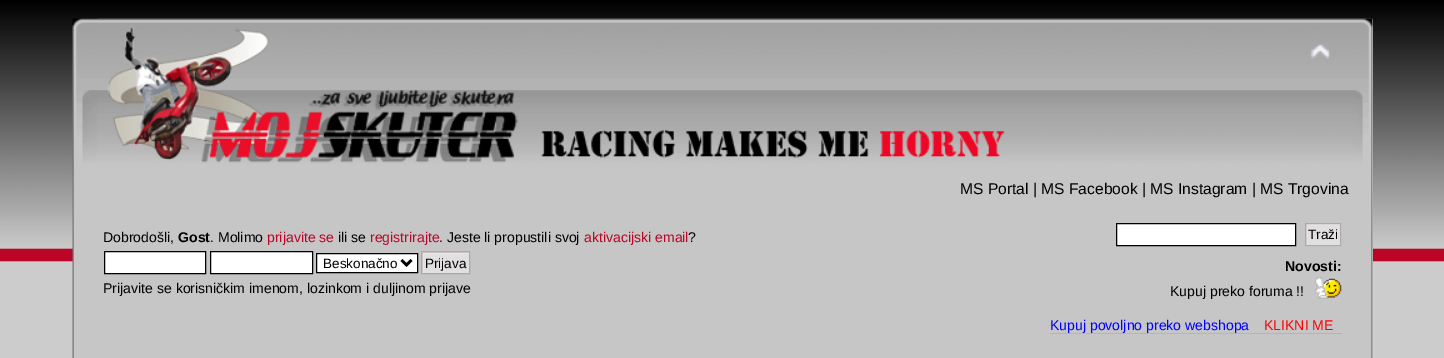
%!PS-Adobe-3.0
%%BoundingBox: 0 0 1444 358
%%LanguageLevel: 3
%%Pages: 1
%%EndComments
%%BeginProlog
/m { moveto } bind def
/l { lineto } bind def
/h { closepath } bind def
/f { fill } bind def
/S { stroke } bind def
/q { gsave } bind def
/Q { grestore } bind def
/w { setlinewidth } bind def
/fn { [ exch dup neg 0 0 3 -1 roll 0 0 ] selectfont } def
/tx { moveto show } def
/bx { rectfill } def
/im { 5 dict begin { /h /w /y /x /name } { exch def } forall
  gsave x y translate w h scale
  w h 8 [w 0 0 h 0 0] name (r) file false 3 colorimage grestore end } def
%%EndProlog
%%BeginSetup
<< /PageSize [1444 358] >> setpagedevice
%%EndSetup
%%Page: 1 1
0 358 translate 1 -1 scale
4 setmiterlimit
0.8 setgray
0 0 1444 358 bx
(image0.raw) 0 0 1444 262 im
(image1.raw) 72 18 1301 340 im
(image2.raw) 97 18 1276 340 im
(image3.raw) 107 26 898 137 im
(image4.raw) 1310 43 20 16 im
/LiberationSans-Regular 15.6 fn
0 setgray
(MS Portal | MS Facebook | MS Instagram | MS Trgovina) 960 194 tx
/LiberationSans-Regular 14.05 fn
(Dobrodošli,) 103 242 tx
/LiberationSans-Bold 14.05 fn
(Gost) 178 242 tx
/LiberationSans-Regular 14.05 fn
(. Molimo) 210 242 tx
0.729 0.02 0.149 setrgbcolor
(prijavite se) 267 242 tx
0 setgray
(ili se) 338 242 tx
0.729 0.02 0.149 setrgbcolor
(registrirajte) 370 242 tx
0 setgray
(. Jeste li propustili svoj) 439 242 tx
0.729 0.02 0.149 setrgbcolor
(aktivacijski email) 584 242 tx
0 setgray
(?) 688 242 tx
1 setgray
104.5 251.5 m 205.5 251.5 l 205.5 273.5 l 104.5 273.5 l h q f Q
0 setgray
S
1 setgray
210.5 251.5 m 312.5 251.5 l 312.5 273.5 l 210.5 273.5 l h q f Q
0 setgray
S
1 setgray
316.5 253.5 m 417.5 253.5 l 417.5 272.5 l 316.5 272.5 l h q f Q
0 setgray
S
2.5 w
401.5 260 m 406.5 265 l 411.5 260 l S
/LiberationSans-Regular 13.5 fn
(Beskonačno) 323 268 tx
0.753 0.663 0.678 setrgbcolor
422 252 47 21 bx
(image5.raw) 422 252 47 21 im
0.667 setgray
1 w
421.5 251.5 48 22 rectstroke
0 setgray
(Prijava) 425 268 tx
/LiberationSans-Regular 14.05 fn
(Prijavite se korisničkim imenom, lozinkom i duljinom prijave) 103 293 tx
1 setgray
1116.5 223.5 m 1295.5 223.5 l 1295.5 245.5 l 1116.5 245.5 l h q f Q
0 setgray
S
(image6.raw) 1306 223 36 24 im
0.667 setgray
1305.5 223.5 35 22 rectstroke
/LiberationSans-Regular 13.5 fn
0 setgray
(Traži) 1308 239 tx
/LiberationSans-Bold 14.05 fn
(Novosti:) 1285 271 tx
/LiberationSans-Regular 14.05 fn
(Kupuj preko foruma !!) 1170 296 tx
(image7.raw) 1315 276 27 23 im
0 0 1 setrgbcolor
(Kupuj povoljno preko webshopa) 1050 330 tx
0.659 0.714 0.812 setrgbcolor
1050 333 292 1 bx
1 0 0 setrgbcolor
(KLIKNI ME) 1264 330 tx
showpage
%%EOF
